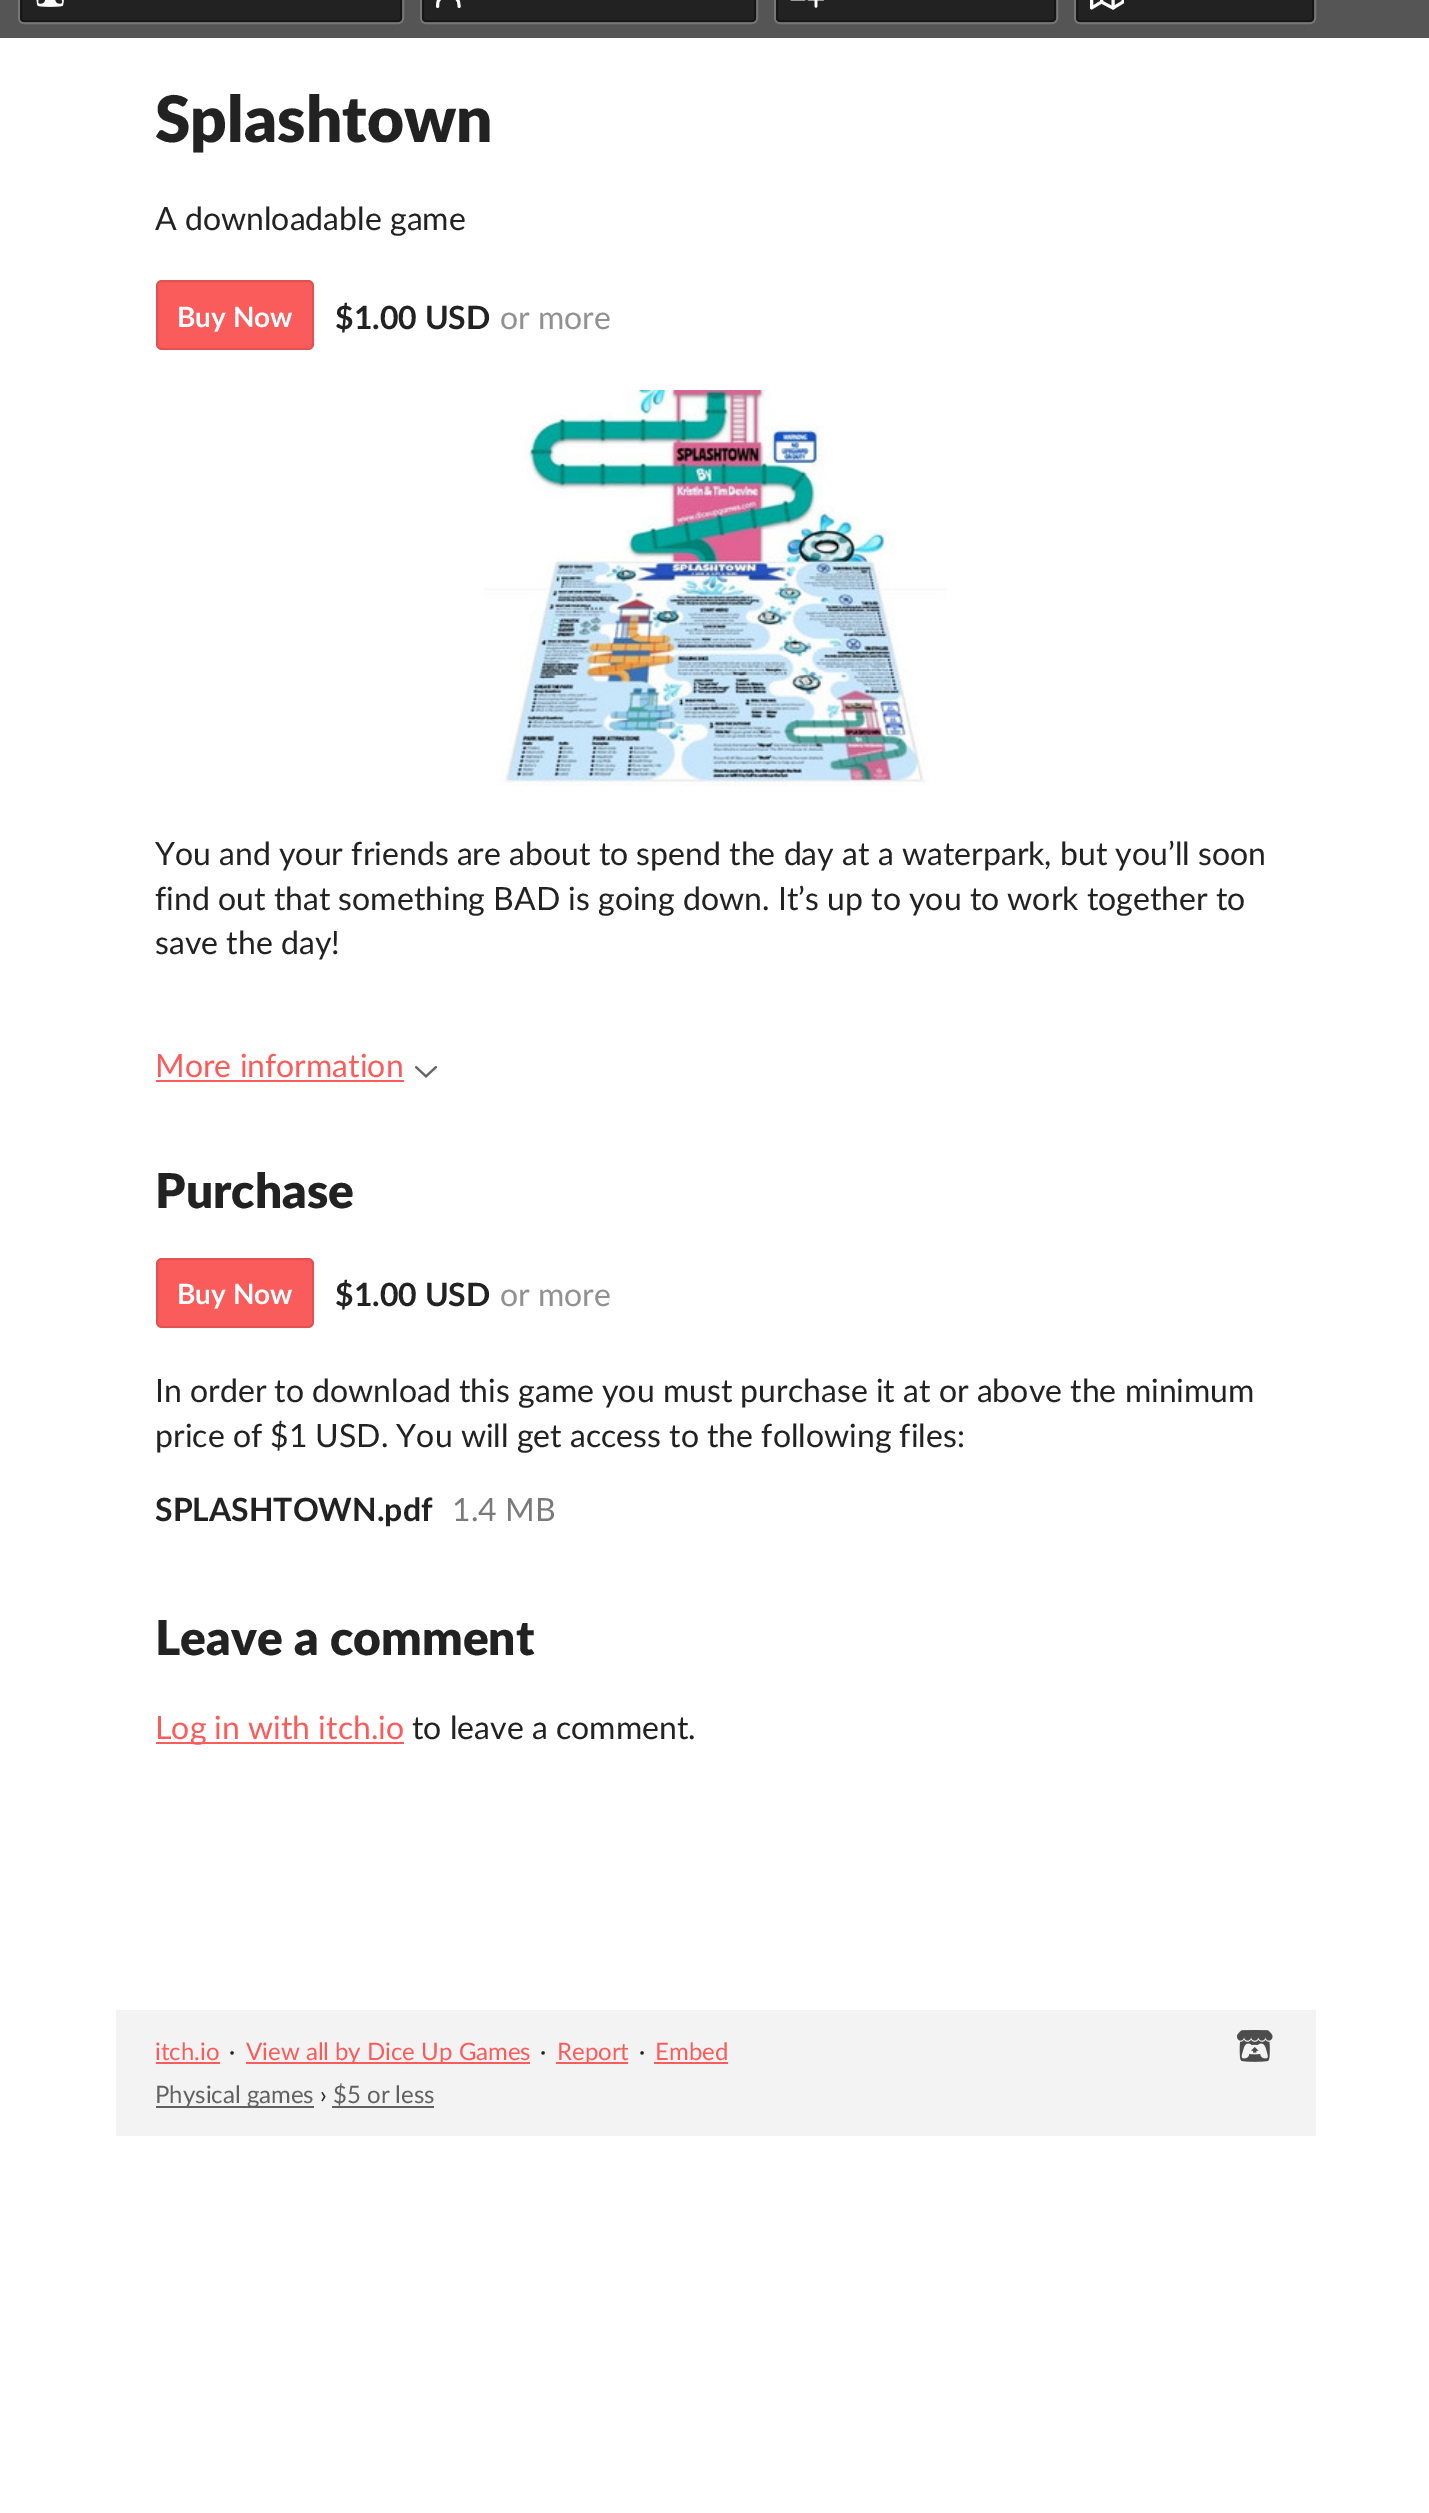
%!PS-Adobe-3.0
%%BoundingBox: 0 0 1429 2513
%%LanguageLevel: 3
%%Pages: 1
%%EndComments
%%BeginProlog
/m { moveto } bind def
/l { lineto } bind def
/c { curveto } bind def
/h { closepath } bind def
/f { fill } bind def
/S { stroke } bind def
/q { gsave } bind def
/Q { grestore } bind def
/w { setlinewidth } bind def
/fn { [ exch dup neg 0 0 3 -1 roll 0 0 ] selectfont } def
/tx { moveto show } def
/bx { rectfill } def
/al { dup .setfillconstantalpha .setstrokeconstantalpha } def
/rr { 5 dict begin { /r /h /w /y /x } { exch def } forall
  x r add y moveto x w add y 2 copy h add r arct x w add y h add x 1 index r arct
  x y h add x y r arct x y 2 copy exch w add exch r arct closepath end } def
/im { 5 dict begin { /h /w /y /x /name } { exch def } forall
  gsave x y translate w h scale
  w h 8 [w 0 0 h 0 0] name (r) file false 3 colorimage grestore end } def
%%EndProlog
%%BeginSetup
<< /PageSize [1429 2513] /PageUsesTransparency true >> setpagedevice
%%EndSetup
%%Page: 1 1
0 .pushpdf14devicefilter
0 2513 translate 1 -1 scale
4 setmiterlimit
1 setgray
0 0 1429 2513 bx
0.333 setgray
0 0 1429 38 bx
0.467 setgray
2 w
19 -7 384 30 5 rr S
0.6 al
0 setgray
20 -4 382 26 4 rr f
0.5 al
0.039 setgray
21 -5 380 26 3 rr S
1 al
(image0.raw) 36 0 28 7 im
0.467 setgray
421 -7 336 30 5 rr S
0.6 al
0 setgray
422 -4 334 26 4 rr f
0.5 al
0.039 setgray
423 -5 332 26 3 rr S
1 al
1 setgray
2.9 w
1 setlinecap
1 setlinejoin
459 6.5 m 459 -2.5 456 -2.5 448.5 -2.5 c 440.5 -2.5 437.5 -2.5 437.5 6.5 c S
0.467 setgray
2 w
0 setlinecap
0 setlinejoin
775 -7 282 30 5 rr S
0.6 al
0 setgray
776 -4 280 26 4 rr f
0.5 al
0.039 setgray
777 -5 278 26 3 rr S
1 al
(image1.raw) 790 0 34 8 im
0.467 setgray
1075 -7 240 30 5 rr S
0.6 al
0 setgray
1076 -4 238 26 4 rr f
0.5 al
0.039 setgray
1077 -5 236 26 3 rr S
q
1090 0 34 12 rectclip
1 al
1 setgray
2.9 w
1 setlinecap
1 setlinejoin
1091.5 -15.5 m 1091.5 8 l 1101.5 2 l 1113 8 l 1123 2 l 1123 -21 l 1113 -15.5 l 1101.5 -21 l h S
Q
1 al
1 setgray
2.9 w
1 setlinecap
1 setlinejoin
1101.5 -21 m 1101.5 2 l 1113 -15.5 m 1113 8 l S
/Lato-Black 64 fn
0.133 setgray
(Splashtown) 155 142 tx
/Lato-Regular 32 fn
(A downloadable game) 155 230 tx
0.98 0.361 0.361 setrgbcolor
156 280 158 70 6 rr f
0.1 al
0 setgray
2 w
0 setlinecap
0 setlinejoin
157 281 156 68 5 rr S
/Lato-Bold 28 fn
1 al
1 setgray
(Buy Now) 177 327 tx
/Lato-Bold 32 fn
0.133 setgray
($1.00 USD) 335 329 tx
/Lato-Regular 32 fn
0.569 setgray
(or more) 500 329 tx
(image2.raw) 484 390 463 396 im
0.133 setgray
(You and your friends are about to spend the day at a waterpark, but you’ll soon) 155 865 tx
(find out that something BAD is going down. It’s up to you to work together to) 155 910 tx
(save the day!) 155 954 tx
0.98 0.361 0.361 setrgbcolor
(More information) 155 1077 tx
156 1080 248 2 bx
(image3.raw) 414 1066 24 12 im
/Lato-Black 48 fn
0.133 setgray
(Purchase) 155 1208 tx
0.98 0.361 0.361 setrgbcolor
156 1258 158 70 6 rr f
0.1 al
0 setgray
157 1259 156 68 5 rr S
/Lato-Bold 28 fn
1 al
1 setgray
(Buy Now) 177 1304 tx
/Lato-Bold 32 fn
0.133 setgray
($1.00 USD) 335 1306 tx
/Lato-Regular 32 fn
0.569 setgray
(or more) 500 1306 tx
0.133 setgray
(In order to download this game you must purchase it at or above the minimum) 155 1402 tx
(price of $1 USD. You will get access to the following files:) 155 1447 tx
/Lato-Bold 32 fn
(SPLASHTOWN.pdf) 155 1521 tx
/Lato-Regular 32 fn
0.478 setgray
(1.4 MB) 452 1521 tx
/Lato-Black 48 fn
0.133 setgray
(Leave a comment) 155 1655 tx
0.98 0.361 0.361 setrgbcolor
156 1742 248 2 bx
/Lato-Regular 32 fn
(Log in with itch.io) 155 1739 tx
0.133 setgray
(to leave a comment.) 412 1739 tx
0.953 setgray
116 2010 1200 126 bx
/Lato-Regular 24 fn
0.98 0.361 0.361 setrgbcolor
(itch.io) 155 2060 tx
156 2062 64 2 bx
0.133 setgray
(·) 229 2060 tx
0.98 0.361 0.361 setrgbcolor
246 2062 284 2 bx
(View all by Dice Up Games) 246 2060 tx
0.133 setgray
(·) 540 2060 tx
0.98 0.361 0.361 setrgbcolor
556 2062 72 2 bx
(Report) 557 2060 tx
0.133 setgray
(·) 639 2060 tx
0.98 0.361 0.361 setrgbcolor
(Embed) 655 2060 tx
654 2062 74 2 bx
(image4.raw) 1237 2030 36 32 im
0.38 setgray
156 2106 158 2 bx
(Physical games) 155 2103 tx
0.133 setgray
(›) 320 2103 tx
0.38 setgray
($5 or less) 333 2103 tx
332 2106 102 2 bx
.poppdf14devicefilter showpage
%%EOF
